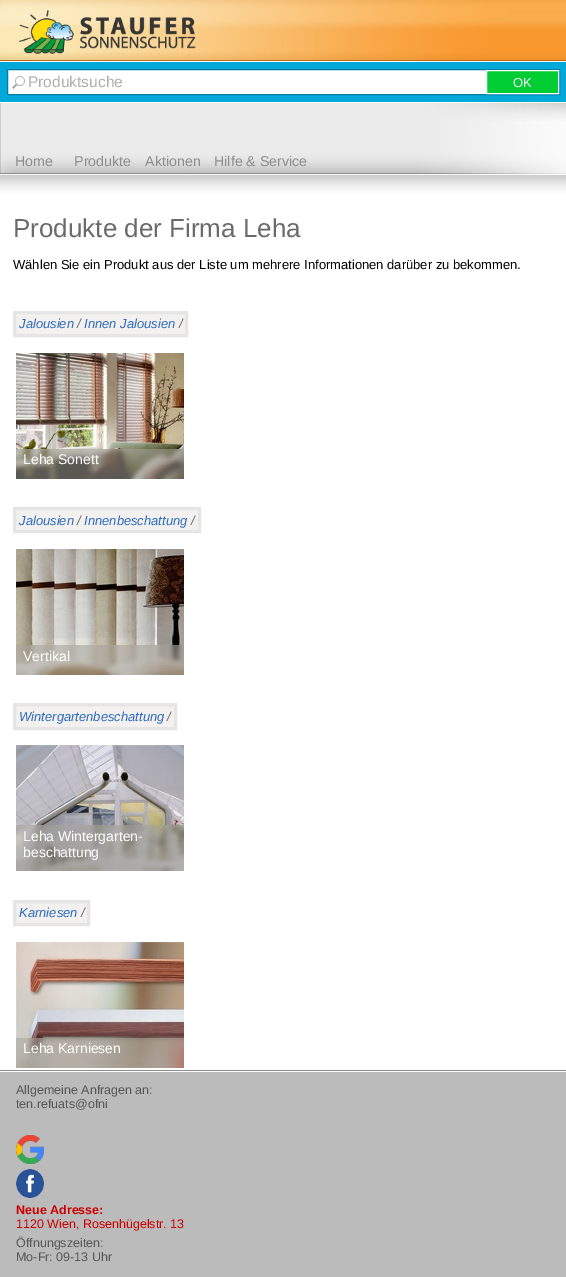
%!PS-Adobe-3.0
%%BoundingBox: 0 0 566 1277
%%LanguageLevel: 3
%%Pages: 1
%%EndComments
%%BeginProlog
/m { moveto } bind def
/l { lineto } bind def
/h { closepath } bind def
/f { fill } bind def
/S { stroke } bind def
/q { gsave } bind def
/Q { grestore } bind def
/w { setlinewidth } bind def
/fn { [ exch dup neg 0 0 3 -1 roll 0 0 ] selectfont } def
/tx { moveto show } def
/bx { rectfill } def
/im { 5 dict begin { /h /w /y /x /name } { exch def } forall
  gsave x y translate w h scale
  w h 8 [w 0 0 h 0 0] name (r) file false 3 colorimage grestore end } def
%%EndProlog
%%BeginSetup
<< /PageSize [566 1277] >> setpagedevice
%%EndSetup
%%Page: 1 1
0 1277 translate 1 -1 scale
4 setmiterlimit
1 setgray
0 0 566 1277 bx
(image0.raw) 0 0 566 60 im
(image1.raw) 0 52 566 10 im
(image2.raw) 18 10 178 44 im
0 0.663 0.855 setrgbcolor
0 62 566 40 bx
1 setgray
8 70 478 24 bx
(image3.raw) 12 76 13 13 im
0 0.494 0.643 setrgbcolor
7.5 69.5 552 25 rectstroke
/LiberationSans-Regular 15.5 fn
0.682 0.682 0.675 setrgbcolor
(Produktsuche) 28 87 tx
0 0.8 0.2 setrgbcolor
486.5 70.5 m 558.5 70.5 l 558.5 93.5 l 486.5 93.5 l h q f Q
1 setgray
S
/LiberationSans-Regular 13 fn
(OK) 513 87 tx
(image4.raw) 418 103 148 18 im
(image5.raw) 0 103 566 72 im
/LiberationSans-Regular 14.25 fn
0.553 setgray
(Home) 15 166 tx
(Produkte) 74 166 tx
(Aktionen) 145 166 tx
(Hilfe & Service) 214 166 tx
(image6.raw) 0 175 566 18 im
/LiberationSans-Regular 26 fn
0.416 setgray
(Produkte der Firma Leha) 13 237 tx
/LiberationSans-Regular 13 fn
0 setgray
(Wählen Sie ein Produkt aus der Liste um mehrere Informationen darüber zu bekommen.) 13 269 tx
0.949 0.945 0.937 setrgbcolor
14.5 312.5 m 186.5 312.5 l 186.5 335.5 l 14.5 335.5 l h q f Q
0.898 setgray
3 w
S
/LiberationSans-Italic 13 fn
0.173 0.412 0.749 setrgbcolor
(Jalousien) 19 328 tx
0.416 setgray
(/) 77 328 tx
0.173 0.412 0.749 setrgbcolor
(Innen Jalousien) 84 328 tx
0.416 setgray
(/) 179 328 tx
(image7.raw) 16 353 168 96 im
(image8.raw) 16 449 168 30 im
/LiberationSans-Regular 14 fn
1 setgray
(Leha Sonett) 23 464 tx
0.949 0.945 0.937 setrgbcolor
14.5 508.5 m 199.5 508.5 l 199.5 531.5 l 14.5 531.5 l h q f Q
0.898 setgray
S
/LiberationSans-Italic 13 fn
0.173 0.412 0.749 setrgbcolor
(Jalousien) 19 525 tx
0.416 setgray
(/) 77 525 tx
0.173 0.412 0.749 setrgbcolor
(Innenbeschattung) 84 525 tx
0.416 setgray
(/) 191 525 tx
(image9.raw) 16 549 168 96 im
(image10.raw) 16 645 168 30 im
/LiberationSans-Regular 14 fn
1 setgray
(Vertikal) 23 661 tx
0.949 0.945 0.937 setrgbcolor
14.5 704.5 m 175.5 704.5 l 175.5 728.5 l 14.5 728.5 l h q f Q
0.898 setgray
S
/LiberationSans-Italic 13 fn
0.173 0.412 0.749 setrgbcolor
(Wintergartenbeschattung) 19 721 tx
0.416 setgray
(/) 167 721 tx
(image11.raw) 16 745 168 80 im
(image12.raw) 16 825 168 46 im
/LiberationSans-Regular 14 fn
1 setgray
(Leha Wintergarten-) 23 841 tx
(beschattung) 23 857 tx
0.949 0.945 0.937 setrgbcolor
14.5 901.5 m 88.5 901.5 l 88.5 924.5 l 14.5 924.5 l h q f Q
0.898 setgray
S
/LiberationSans-Italic 13 fn
0.173 0.412 0.749 setrgbcolor
(Karniesen) 19 917 tx
0.416 setgray
(/) 81 917 tx
(image13.raw) 16 942 168 96 im
(image14.raw) 16 1038 168 30 im
/LiberationSans-Regular 14 fn
1 setgray
(Leha Karniesen) 23 1053 tx
(image15.raw) 0 1070 566 2 im
0.733 setgray
0 1072 566 205 bx
/LiberationSans-Regular 12.5 fn
0.341 setgray
(Allgemeine Anfragen an:) 16 1094 tx
(ten.refuats@ofni) 16 1108 tx
(image16.raw) 16 1135 28 29 im
(image17.raw) 16 1169 28 29 im
/LiberationSans-Bold 12.5 fn
0.8 0 0 setrgbcolor
(Neue Adresse:) 16 1214 tx
/LiberationSans-Regular 12.5 fn
(1120 Wien, Rosenhügelstr. 13) 16 1228 tx
0.341 setgray
(Öffnungszeiten:) 16 1247 tx
(Mo-Fr: 09-13 Uhr) 16 1261 tx
showpage
%%EOF
